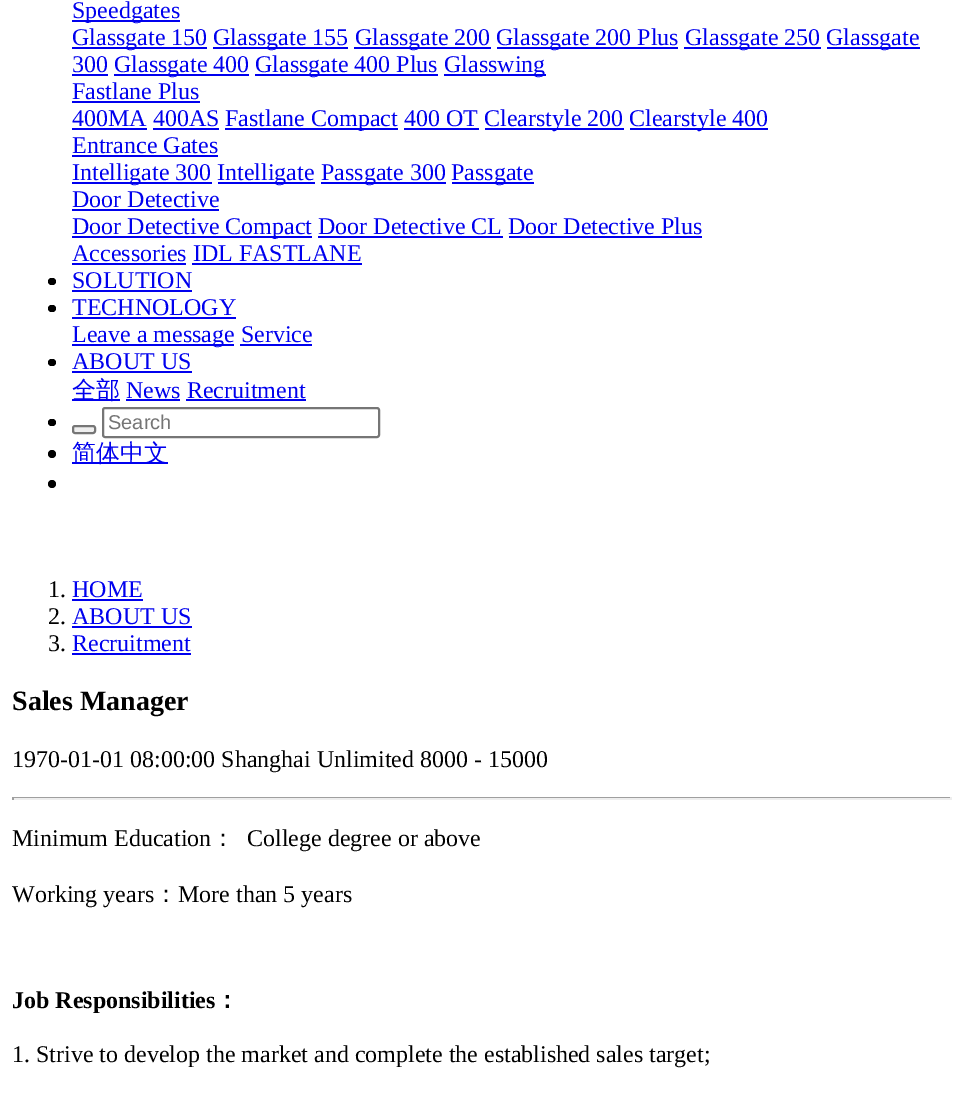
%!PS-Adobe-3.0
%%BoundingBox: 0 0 962 1102
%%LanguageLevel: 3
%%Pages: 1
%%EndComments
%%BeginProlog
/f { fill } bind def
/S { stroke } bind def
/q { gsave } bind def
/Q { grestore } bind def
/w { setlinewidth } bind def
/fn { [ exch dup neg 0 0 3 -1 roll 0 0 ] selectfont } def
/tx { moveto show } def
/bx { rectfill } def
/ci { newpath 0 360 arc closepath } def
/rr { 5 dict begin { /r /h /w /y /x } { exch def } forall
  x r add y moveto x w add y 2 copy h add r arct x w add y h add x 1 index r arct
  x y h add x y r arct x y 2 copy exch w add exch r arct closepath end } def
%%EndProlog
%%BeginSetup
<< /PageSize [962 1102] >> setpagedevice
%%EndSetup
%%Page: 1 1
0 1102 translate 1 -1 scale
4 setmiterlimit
1 setgray
0 0 962 1102 bx
0 0 0.933 setrgbcolor
72 20 108 2 bx
/LiberationSerif-Regular 24 fn
(Speedgates) 72 18 tx
72 47 135 2 bx
(Glassgate 150) 72 45 tx
213 47 135 2 bx
(Glassgate 155) 213 45 tx
354 47 137 2 bx
(Glassgate 200) 355 45 tx
497 47 181 2 bx
(Glassgate 200 Plus) 496 45 tx
684 47 137 2 bx
(Glassgate 250) 685 45 tx
827 47 93 2 bx
(Glassgate) 826 45 tx
(300) 72 72 tx
72 74 36 2 bx
114 74 135 2 bx
(Glassgate 400) 114 72 tx
255 74 183 2 bx
(Glassgate 400 Plus) 255 72 tx
444 74 102 2 bx
(Glasswing) 444 72 tx
(Fastlane Plus) 72 99 tx
72 101 128 2 bx
(400MA 400AS) 72 126 tx
72 128 75 2 bx
225 128 173 2 bx
(Fastlane Compact 400 OT) 225 126 tx
485 128 139 2 bx
(Clearstyle 200) 484 126 tx
630 128 138 2 bx
(Clearstyle 400) 629 126 tx
153 128 66 2 bx
404 128 75 2 bx
(Entrance Gates) 72 153 tx
72 155 146 2 bx
72 182 140 2 bx
(Intelligate 300) 72 180 tx
218 182 97 2 bx
(Intelligate) 217 180 tx
321 182 125 2 bx
(Passgate 300) 321 180 tx
452 182 82 2 bx
(Passgate) 451 180 tx
(Door Detective) 72 207 tx
72 209 147 2 bx
72 236 240 2 bx
(Door Detective Compact Door Detective CL Door Detective Plus) 72 234 tx
318 236 185 2 bx
509 236 193 2 bx
(Accessories IDL FASTLANE) 72 261 tx
72 263 114 2 bx
192 263 170 2 bx
0 setgray
48 278 8 7 3.5 rr f
0 0 0.933 setrgbcolor
(SOLUTION) 72 288 tx
72 290 120 2 bx
0 setgray
48 305 8 7 3.5 rr f
0 0 0.933 setrgbcolor
(TECHNOLOGY) 72 315 tx
72 317 164 2 bx
72 344 162 2 bx
(Leave a message Service) 72 342 tx
240 344 72 2 bx
0 setgray
48 359 8 7 3.5 rr f
0 0 0.933 setrgbcolor
(ABOUT US) 72 369 tx
72 371 120 2 bx
72 399 48 2 bx
/WenQuanYiZenHei-Medium 24 fn
(全部) 72 398 tx
/LiberationSerif-Regular 24 fn
(News Recruitment) 126 398 tx
126 399 54 2 bx
186 399 120 2 bx
0 setgray
48 419 8 7 3.5 rr f
0.937 setgray
73 426 22 7 2 rr q f Q
0.463 setgray
2 w
S
103 408 276 29 2 rr S
/LiberationSans-Regular 20 fn
0.459 setgray
(Search) 108 429 tx
0 setgray
52 454 4 ci f
0 0 0.933 setrgbcolor
72 462 96 2 bx
/WenQuanYiZenHei-Medium 24 fn
(简体中文) 72 461 tx
0 setgray
52 484 4 ci f
/LiberationSerif-Regular 24 fn
(1.) 48 597 tx
0 0 0.933 setrgbcolor
(HOME) 72 597 tx
72 599 71 2 bx
0 setgray
(2.) 48 624 tx
0 0 0.933 setrgbcolor
(ABOUT US) 72 624 tx
72 626 120 2 bx
0 setgray
(3.) 48 651 tx
0 0 0.933 setrgbcolor
(Recruitment) 72 651 tx
72 653 119 2 bx
/LiberationSerif-Bold 28 fn
0 setgray
(Sales Manager) 12 710 tx
/LiberationSerif-Regular 24 fn
(1970-01-01 08:00:00 Shanghai Unlimited 8000 - 15000) 12 767 tx
0.624 setgray
12 797 939 1 bx
0.933 setgray
950 797 2 3 bx
12 798 939 2 bx
0.624 setgray
12 797 2 3 bx
0 setgray
(Minimum Education) 12 846 tx
/WenQuanYiZenHei-Medium 24 fn
(：) 211 846 tx
/LiberationSerif-Regular 24 fn
(College degree or above) 247 846 tx
(Working years) 12 902 tx
/WenQuanYiZenHei-Medium 24 fn
(：) 154 902 tx
/LiberationSerif-Regular 24 fn
(More than 5 years) 178 902 tx
/LiberationSerif-Bold 24 fn
(Job Responsibilities) 12 1008 tx
/WenQuanYiZenHei-Bold 24 fn
(：) 215 1008 tx
/LiberationSerif-Regular 24 fn
(1. Strive to develop the market and complete the established sales target;) 12 1062 tx
showpage
%%EOF
